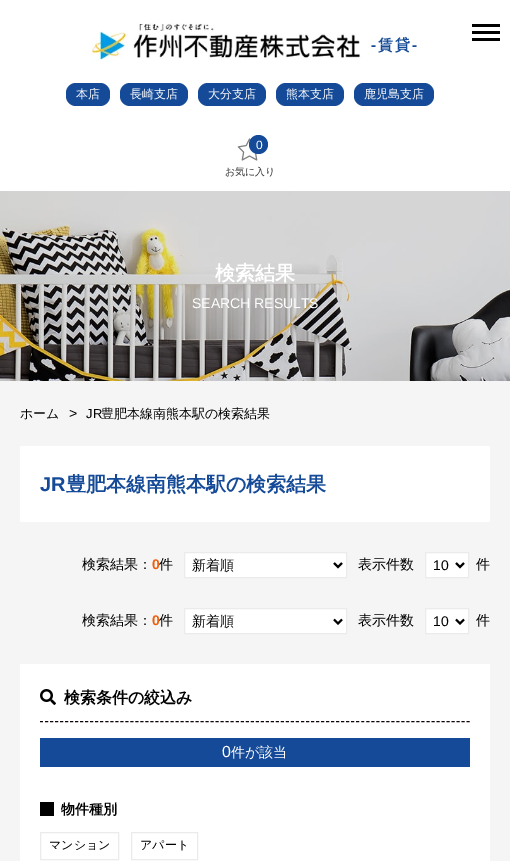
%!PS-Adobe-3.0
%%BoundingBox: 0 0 510 861
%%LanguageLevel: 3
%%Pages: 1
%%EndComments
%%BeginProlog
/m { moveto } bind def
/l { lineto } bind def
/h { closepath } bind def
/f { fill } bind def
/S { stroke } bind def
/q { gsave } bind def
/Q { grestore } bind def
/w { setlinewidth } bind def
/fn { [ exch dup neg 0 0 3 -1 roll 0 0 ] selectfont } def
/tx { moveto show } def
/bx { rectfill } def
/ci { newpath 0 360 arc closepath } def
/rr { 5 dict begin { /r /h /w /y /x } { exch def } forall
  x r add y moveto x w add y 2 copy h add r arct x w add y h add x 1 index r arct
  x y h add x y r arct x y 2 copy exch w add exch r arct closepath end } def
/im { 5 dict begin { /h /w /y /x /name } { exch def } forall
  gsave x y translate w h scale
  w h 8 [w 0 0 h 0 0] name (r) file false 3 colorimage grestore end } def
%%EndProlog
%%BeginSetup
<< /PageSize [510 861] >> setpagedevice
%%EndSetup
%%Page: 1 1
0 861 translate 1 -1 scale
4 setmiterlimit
1 setgray
0 0 510 861 bx
0 setgray
472 24 28 3 bx
472 31 28 3 bx
472 38 28 3 bx
(image0.raw) 91 23 270 40 im
/LiberationSans-Bold 15 fn
0.078 0.29 0.592 setrgbcolor
371 50 m 2 0 (-) ashow
/WenQuanYiZenHei-Bold 15 fn
378 50 m 2 0 (賃貸) ashow
/LiberationSans-Bold 15 fn
412 50 m 2 0 (-) ashow
66 83 44 23 10 rr f
/WenQuanYiZenHei-Medium 12 fn
1 setgray
(本店) 76 98 tx
0.078 0.29 0.592 setrgbcolor
120 83 68 23 10 rr f
1 setgray
(長崎支店) 130 98 tx
0.078 0.29 0.592 setrgbcolor
198 83 68 23 10 rr f
1 setgray
(大分支店) 208 98 tx
0.078 0.29 0.592 setrgbcolor
276 83 68 23 10 rr f
1 setgray
(熊本支店) 286 98 tx
0.078 0.29 0.592 setrgbcolor
354 83 80 23 10 rr f
1 setgray
(鹿児島支店) 364 98 tx
(image1.raw) 237 138 21 23 im
0.078 0.29 0.592 setrgbcolor
258.5 144.5 9.5 ci f
/LiberationSans-Regular 12 fn
1 setgray
(0) 256 149 tx
/WenQuanYiZenHei-Medium 10 fn
0.2 setgray
(お気に入り) 225 175 tx
0.961 setgray
0 381 510 480 bx
(image2.raw) 0 191 510 190 im
/WenQuanYiZenHei-Bold 20 fn
1 setgray
(検索結果) 215 280 tx
/LiberationSans-Regular 14 fn
(SEARCH RESULTS) 192 308 tx
/WenQuanYiZenHei-Medium 13 fn
0 setgray
(ホーム) 20 418 tx
/LiberationSans-Regular 14 fn
(>) 69 418 tx
/LiberationSans-Regular 13 fn
(JR) 86 418 tx
/WenQuanYiZenHei-Medium 13 fn
(豊肥本線南熊本駅の検索結果) 101 418 tx
1 setgray
20 446 470 76 bx
/LiberationSans-Bold 20 fn
0.078 0.29 0.592 setrgbcolor
(JR) 40 491 tx
/WenQuanYiZenHei-Bold 20 fn
(豊肥本線南熊本駅の検索結果) 66 491 tx
/WenQuanYiZenHei-Medium 14 fn
0 setgray
(検索結果：) 82 569 tx
/LiberationSans-Bold 14 fn
0.922 0.38 0.055 setrgbcolor
(0) 152 569 tx
/WenQuanYiZenHei-Medium 14 fn
0 setgray
(件) 159 569 tx
1 setgray
184.5 552.5 m 346.5 552.5 l 346.5 577.5 l 184.5 577.5 l h q f Q
0.922 setgray
S
0 setgray
2 w
334 563 m 338 567 l 342 563 l S
(新着順) 192 570 tx
(表示件数) 358 569 tx
1 setgray
425.5 552.5 m 468.5 552.5 l 468.5 577.5 l 425.5 577.5 l h q f Q
0.922 setgray
1 w
S
0 setgray
2 w
456 563 m 460 567 l 464 563 l S
/LiberationSans-Regular 14 fn
(10) 433 570 tx
/WenQuanYiZenHei-Medium 14 fn
(件) 476 569 tx
(検索結果：) 82 625 tx
/LiberationSans-Bold 14 fn
0.922 0.38 0.055 setrgbcolor
(0) 152 625 tx
/WenQuanYiZenHei-Medium 14 fn
0 setgray
(件) 159 625 tx
1 setgray
184.5 608.5 m 346.5 608.5 l 346.5 633.5 l 184.5 633.5 l h q f Q
0.922 setgray
1 w
S
0 setgray
2 w
334 619.5 m 338 623.5 l 342 619.5 l S
(新着順) 192 626 tx
(表示件数) 358 625 tx
1 setgray
425.5 608.5 m 468.5 608.5 l 468.5 633.5 l 425.5 633.5 l h q f Q
0.922 setgray
1 w
S
0 setgray
2 w
456 619.5 m 460 623.5 l 464 619.5 l S
/LiberationSans-Regular 14 fn
(10) 433 626 tx
/WenQuanYiZenHei-Medium 14 fn
(件) 476 625 tx
1 setgray
20 664 470 197 bx
0.055 0.016 0.035 setrgbcolor
1 w
[3 2.02] 0 setdash
40 721.5 m 470 721.5 l S
(image3.raw) 40 689 16 16 im
/WenQuanYiZenHei-Bold 16 fn
0 setgray
(検索条件の絞込み) 64 703 tx
0.078 0.29 0.592 setrgbcolor
40 738 430 29 bx
/LiberationSans-Regular 16 fn
1 setgray
(0) 222 757 tx
/WenQuanYiZenHei-Medium 14 fn
(件が該当) 231 757 tx
0 setgray
40 802 14 14 bx
/WenQuanYiZenHei-Bold 14 fn
(物件種別) 61 814 tx
0.922 setgray
[] 0 setdash
40.5 832.5 78 27 rectstroke
/WenQuanYiZenHei-Medium 12 fn
0 setgray
(マンション) 49 849 tx
0.922 setgray
131.5 832.5 66 27 rectstroke
0 setgray
(アパート) 140 849 tx
showpage
%%EOF
